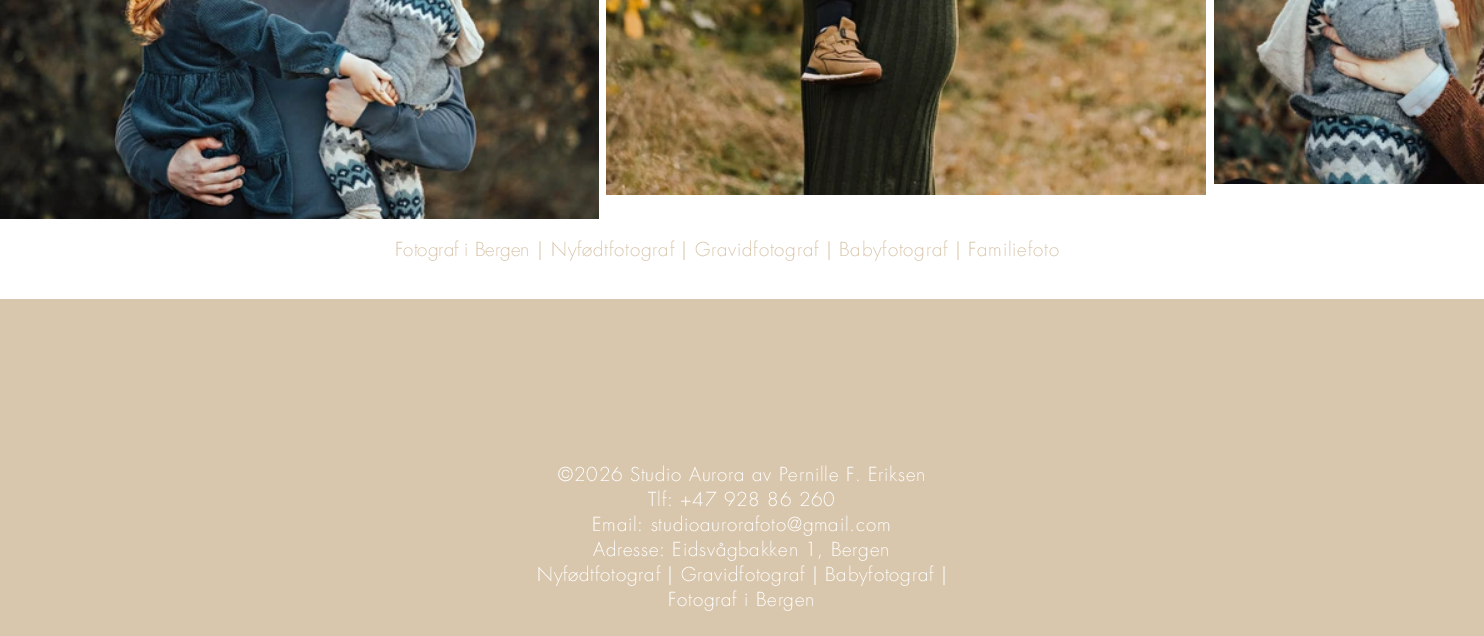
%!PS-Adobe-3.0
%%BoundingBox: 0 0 1484 636
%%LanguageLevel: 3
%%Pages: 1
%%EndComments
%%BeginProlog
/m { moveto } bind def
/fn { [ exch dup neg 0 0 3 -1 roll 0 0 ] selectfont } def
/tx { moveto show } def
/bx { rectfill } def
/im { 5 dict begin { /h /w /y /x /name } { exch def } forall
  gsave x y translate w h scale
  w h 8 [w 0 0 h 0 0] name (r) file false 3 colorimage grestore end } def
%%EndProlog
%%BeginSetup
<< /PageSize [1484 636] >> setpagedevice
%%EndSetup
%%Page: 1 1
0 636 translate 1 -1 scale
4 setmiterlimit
1 setgray
0 0 1484 636 bx
(image0.raw) 0 0 599 219 im
(image1.raw) 606 0 600 195 im
(image2.raw) 1214 0 270 184 im
/futura-Light 18.75 fn
0.851 0.78 0.678 setrgbcolor
(Fotograf i Bergen) 395 256 tx
537 256 m 0.75 0 (|) ashow
551 256 m 0.75 0 (Nyfødtfotograf | Gravidfotograf | Babyfotograf | Familiefoto) ashow
0 299 1484 337 bx
1 setgray
558 481 m 0.75 0 (©2026 Studio Aurora av Pernille F. Eriksen) ashow
648 506 m 0.75 0 (Tlf: +47 928 86 260) ashow
592 531 m 0.75 0 (Email: studioaurorafoto@gmail.com) ashow
593 556 m 0.75 0 (Adresse: Eidsvågbakken 1, Bergen) ashow
537 581 m 0.75 0 (Nyfødtfotograf | Gravidfotograf | Babyfotograf |) ashow
668 606 m 0.75 0 (Fotograf i Bergen) ashow
showpage
%%EOF
